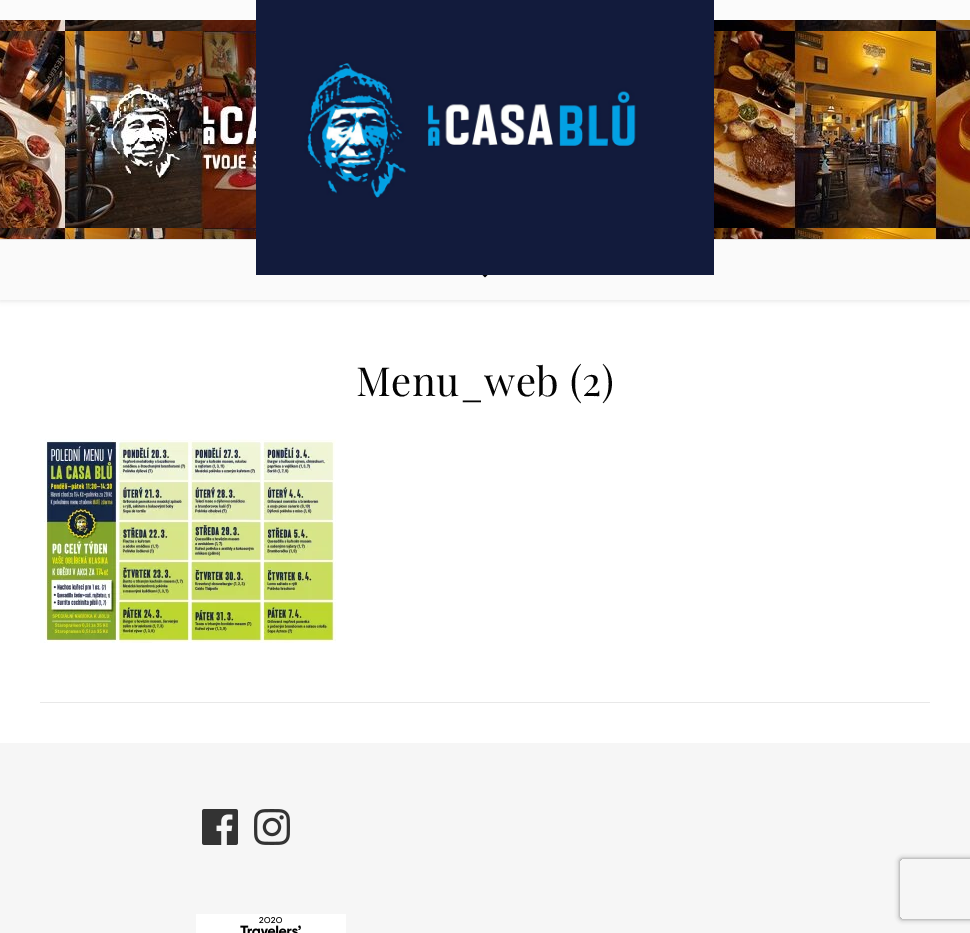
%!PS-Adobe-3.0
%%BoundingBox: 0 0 970 933
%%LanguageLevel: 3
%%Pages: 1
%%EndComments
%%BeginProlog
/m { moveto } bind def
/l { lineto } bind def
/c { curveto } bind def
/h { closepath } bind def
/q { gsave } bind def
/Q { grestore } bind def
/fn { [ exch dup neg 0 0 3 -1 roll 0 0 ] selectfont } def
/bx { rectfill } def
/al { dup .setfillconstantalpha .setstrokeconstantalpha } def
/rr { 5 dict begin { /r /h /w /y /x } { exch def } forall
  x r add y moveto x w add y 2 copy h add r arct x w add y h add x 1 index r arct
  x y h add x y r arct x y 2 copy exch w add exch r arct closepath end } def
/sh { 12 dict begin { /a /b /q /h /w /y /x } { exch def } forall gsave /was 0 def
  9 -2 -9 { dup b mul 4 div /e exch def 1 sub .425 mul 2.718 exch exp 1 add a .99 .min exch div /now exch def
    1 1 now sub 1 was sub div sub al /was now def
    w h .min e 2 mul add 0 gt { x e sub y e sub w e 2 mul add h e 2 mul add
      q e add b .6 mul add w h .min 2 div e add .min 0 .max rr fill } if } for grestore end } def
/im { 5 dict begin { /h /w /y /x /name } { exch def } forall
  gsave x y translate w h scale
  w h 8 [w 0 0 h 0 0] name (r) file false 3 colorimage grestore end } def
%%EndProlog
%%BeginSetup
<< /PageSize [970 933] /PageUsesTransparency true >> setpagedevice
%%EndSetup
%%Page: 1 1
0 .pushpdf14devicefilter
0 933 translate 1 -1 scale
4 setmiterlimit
1 setgray
0 0 970 933 bx
0.984 setgray
0 0 970 20 bx
(image1.raw) 0 20 970 219 im
0.922 setgray
0 239 970 1 bx
0 setgray
0 241 970 60 0 2.5 0.1 sh
0.98 setgray
0 240 970 60 bx
(image0.raw) 256 0 458 275 im
(image2.raw) 482 275 6 3 im
/PlayfairDisplay-Regular 40 fn
0.012 setgray
356 396 m 0.5 0 (Menu_web \(2\)) ashow
(image3.raw) 40 439 296 204 im
0.91 setgray
40 702 890 1 bx
0.965 setgray
0 743 970 190 bx
(image4.raw) 202 809 36 36 im
(image5.raw) 254 809 36 36 im
(image6.raw) 196 914 150 19 im
q
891 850 m 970 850 l 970 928 l 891 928 l h 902 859 m 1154 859 l 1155 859 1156 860 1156 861 c 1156 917 l 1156 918 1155 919 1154 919 c 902 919 l 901 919 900 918 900 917 c 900 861 l 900 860 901 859 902 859 c h eoclip newpath
0.502 setgray
900 859 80 60 2 2.5 1 sh
Q
.poppdf14devicefilter showpage
%%EOF
